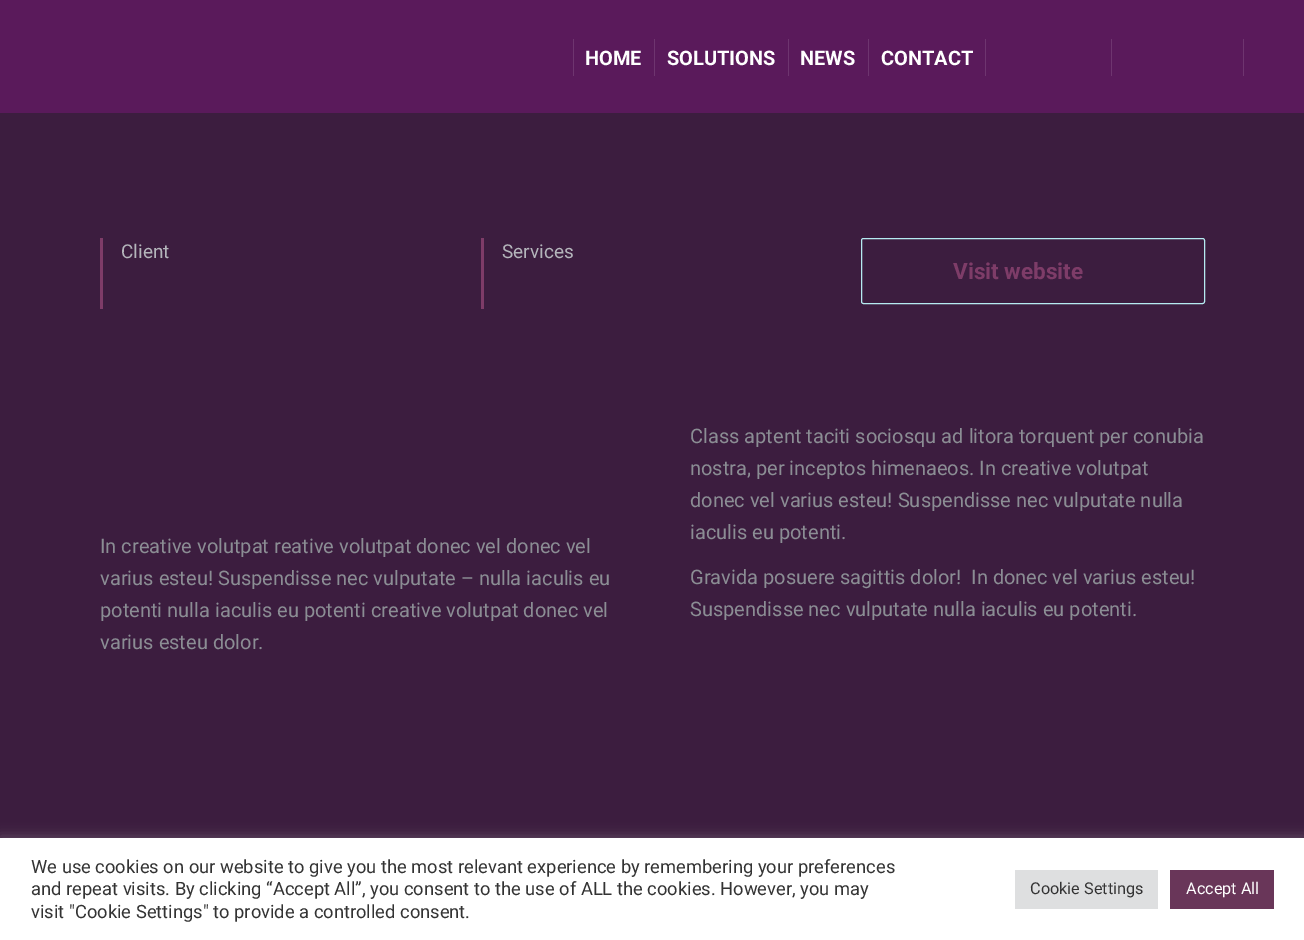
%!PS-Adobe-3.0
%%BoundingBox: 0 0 1304 940
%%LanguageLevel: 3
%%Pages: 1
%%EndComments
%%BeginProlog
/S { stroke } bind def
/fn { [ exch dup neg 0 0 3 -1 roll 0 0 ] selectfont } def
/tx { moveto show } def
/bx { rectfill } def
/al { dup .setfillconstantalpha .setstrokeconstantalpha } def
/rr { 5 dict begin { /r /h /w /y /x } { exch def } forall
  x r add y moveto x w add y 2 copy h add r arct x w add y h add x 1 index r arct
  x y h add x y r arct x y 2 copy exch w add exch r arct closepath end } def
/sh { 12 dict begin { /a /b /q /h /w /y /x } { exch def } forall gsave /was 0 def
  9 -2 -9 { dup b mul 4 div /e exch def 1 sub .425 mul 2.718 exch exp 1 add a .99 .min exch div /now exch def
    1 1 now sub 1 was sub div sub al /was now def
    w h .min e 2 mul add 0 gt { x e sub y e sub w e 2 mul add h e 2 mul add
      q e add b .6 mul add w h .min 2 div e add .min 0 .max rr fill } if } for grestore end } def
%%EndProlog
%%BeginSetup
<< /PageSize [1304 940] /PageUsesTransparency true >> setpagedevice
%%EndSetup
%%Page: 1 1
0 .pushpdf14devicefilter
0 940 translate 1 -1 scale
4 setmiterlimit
0.235 0.114 0.247 setrgbcolor
0 0 1304 940 bx
0.353 0.102 0.357 setrgbcolor
0 0 1304 113 bx
0.431 0.208 0.435 setrgbcolor
573 39 1 37 bx
/Roboto-Bold 20 fn
1 setgray
(HOME) 585 65 tx
0.431 0.208 0.435 setrgbcolor
654 39 1 37 bx
1 setgray
(SOLUTIONS) 667 65 tx
0.431 0.208 0.435 setrgbcolor
788 39 1 37 bx
1 setgray
(NEWS) 800 65 tx
0.431 0.208 0.435 setrgbcolor
868 39 1 37 bx
1 setgray
(CONTACT) 881 65 tx
0.431 0.208 0.435 setrgbcolor
985 39 1 37 bx
1111 39 1 37 bx
1243 39 1 37 bx
0.494 0.235 0.408 setrgbcolor
100 238 3 71 bx
/Roboto-Regular 19 fn
0.706 0.71 0.733 setrgbcolor
(Client) 121 258 tx
0.494 0.235 0.408 setrgbcolor
481 238 3 71 bx
0.706 0.71 0.733 setrgbcolor
(Services) 502 258 tx
0.71 0.922 0.945 setrgbcolor
861.5 238.5 343 65 2 rr S
/Roboto-Bold 22.5 fn
0.494 0.235 0.408 setrgbcolor
(Visit website) 953 279 tx
/Roboto-Regular 20 fn
0.545 0.553 0.58 setrgbcolor
(In creative volutpat reative volutpat donec vel donec vel) 100 553 tx
(varius esteu! Suspendisse nec vulputate – nulla iaculis eu) 100 585 tx
(potenti nulla iaculis eu potenti creative volutpat donec vel) 100 617 tx
(varius esteu dolor.) 100 649 tx
(Class aptent taciti sociosqu ad litora torquent per conubia) 690 443 tx
(nostra, per inceptos himenaeos. In creative volutpat) 690 475 tx
(donec vel varius esteu! Suspendisse nec vulputate nulla) 690 507 tx
(iaculis eu potenti.) 690 539 tx
(Gravida posuere sagittis dolor!  In donec vel varius esteu!) 690 584 tx
(Suspendisse nec vulputate nulla iaculis eu potenti.) 690 616 tx
0.675 0.671 0.671 setrgbcolor
0 836 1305 103 0 6 0.3 sh
1 setgray
0 838 1304 102 bx
/Roboto-Regular 18.35 fn
0.2 setgray
(We use cookies on our website to give you the most relevant experience by remembering your preferences) 31 873 tx
(and repeat visits. By clicking “Accept All”, you consent to the use of ALL the cookies. However, you may) 31 895 tx
(visit "Cookie Settings" to provide a controlled consent.) 31 918 tx
0.871 0.875 0.878 setrgbcolor
1015 870 143 39 bx
/Roboto-Regular 16.25 fn
0.2 setgray
(Cookie Settings) 1030 894 tx
0.412 0.212 0.349 setrgbcolor
1170 870 104 39 bx
1 setgray
(Accept All) 1186 894 tx
.poppdf14devicefilter showpage
%%EOF
